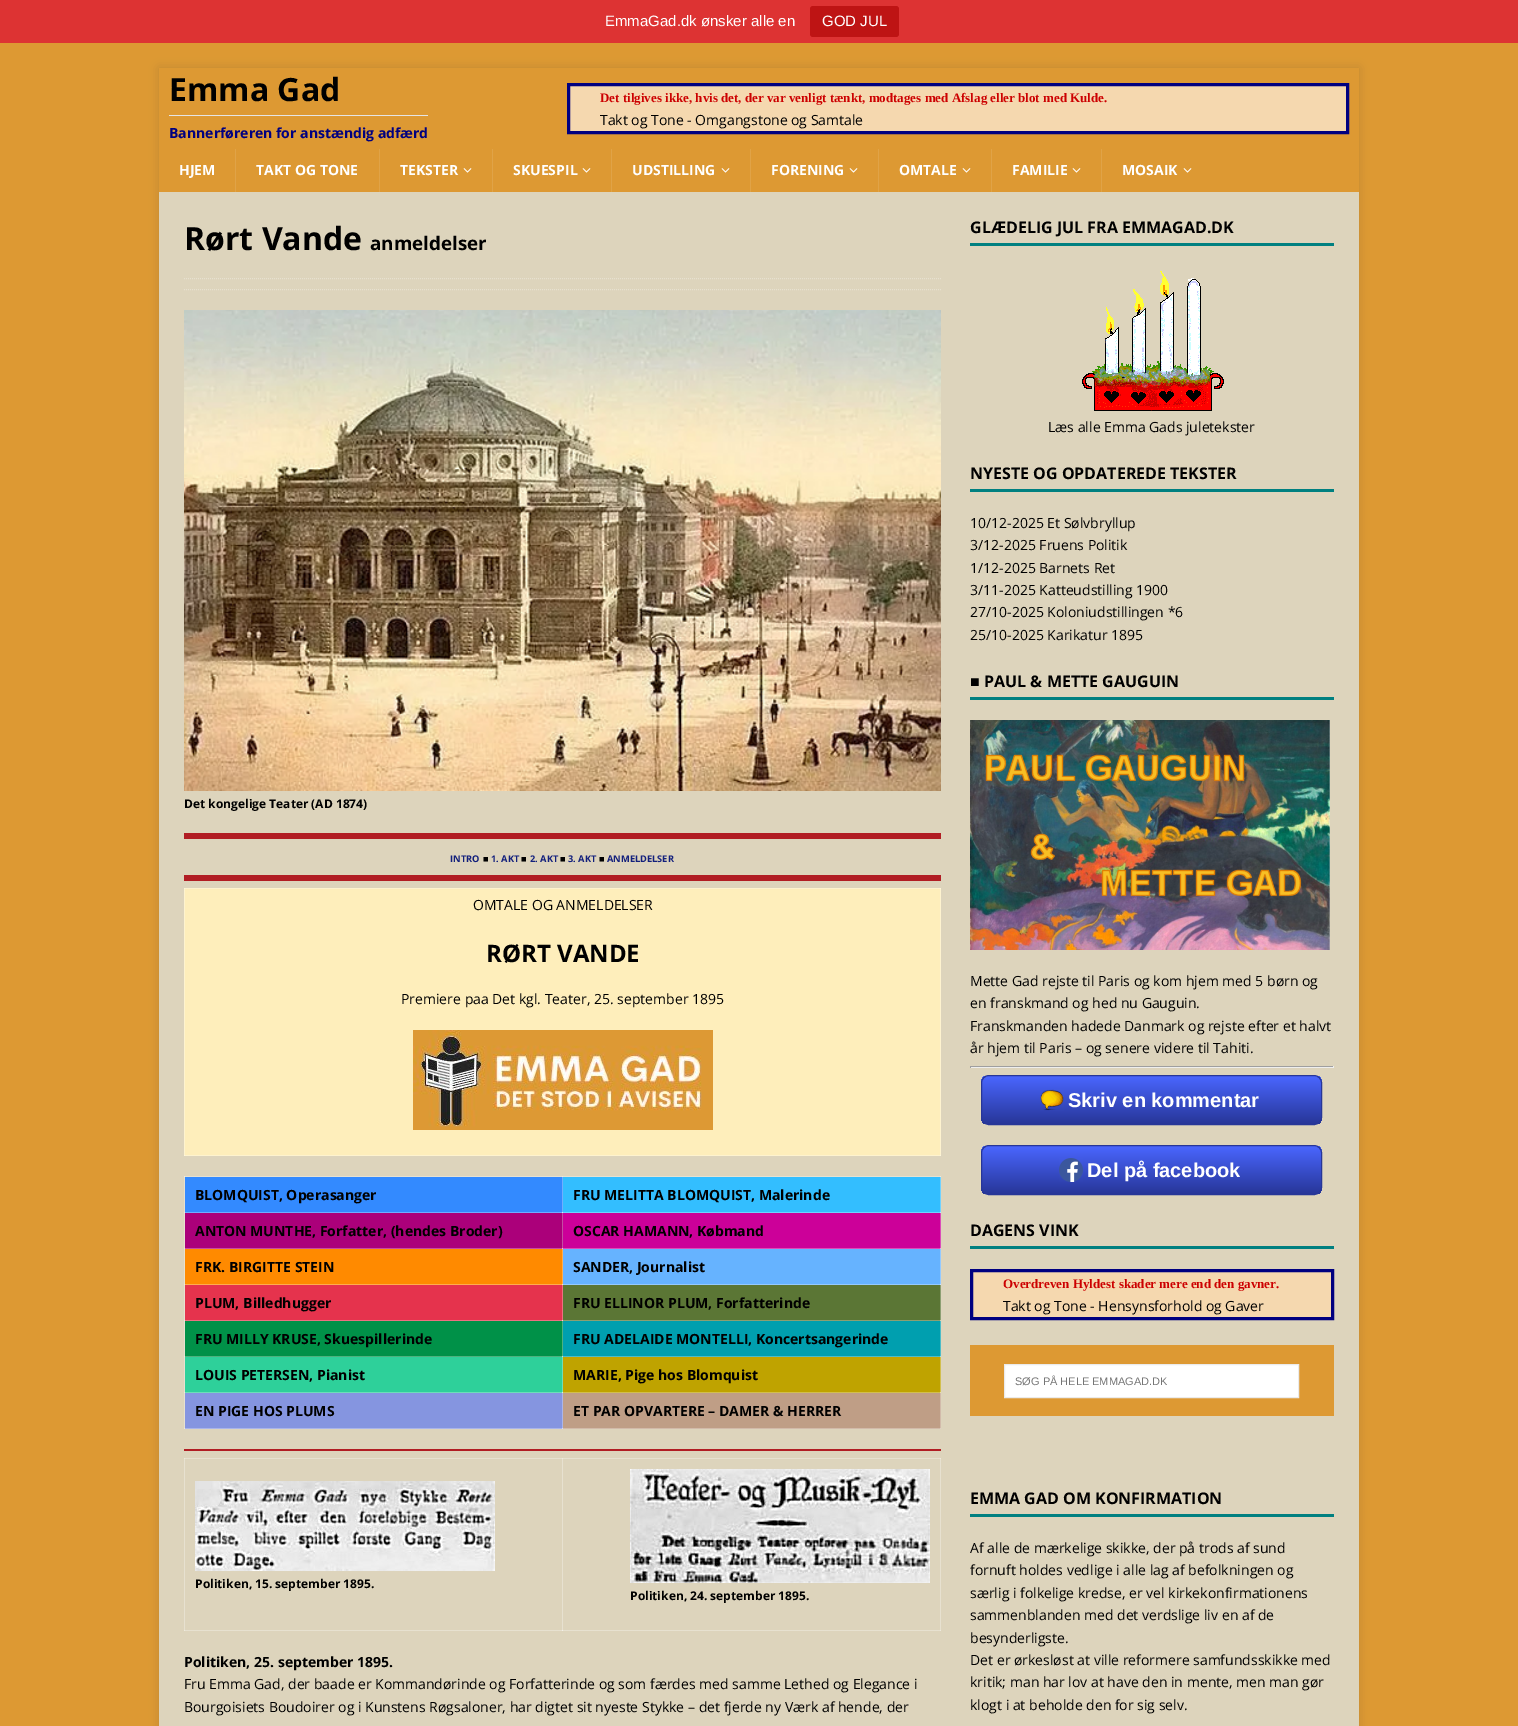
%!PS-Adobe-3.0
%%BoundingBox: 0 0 1518 1726
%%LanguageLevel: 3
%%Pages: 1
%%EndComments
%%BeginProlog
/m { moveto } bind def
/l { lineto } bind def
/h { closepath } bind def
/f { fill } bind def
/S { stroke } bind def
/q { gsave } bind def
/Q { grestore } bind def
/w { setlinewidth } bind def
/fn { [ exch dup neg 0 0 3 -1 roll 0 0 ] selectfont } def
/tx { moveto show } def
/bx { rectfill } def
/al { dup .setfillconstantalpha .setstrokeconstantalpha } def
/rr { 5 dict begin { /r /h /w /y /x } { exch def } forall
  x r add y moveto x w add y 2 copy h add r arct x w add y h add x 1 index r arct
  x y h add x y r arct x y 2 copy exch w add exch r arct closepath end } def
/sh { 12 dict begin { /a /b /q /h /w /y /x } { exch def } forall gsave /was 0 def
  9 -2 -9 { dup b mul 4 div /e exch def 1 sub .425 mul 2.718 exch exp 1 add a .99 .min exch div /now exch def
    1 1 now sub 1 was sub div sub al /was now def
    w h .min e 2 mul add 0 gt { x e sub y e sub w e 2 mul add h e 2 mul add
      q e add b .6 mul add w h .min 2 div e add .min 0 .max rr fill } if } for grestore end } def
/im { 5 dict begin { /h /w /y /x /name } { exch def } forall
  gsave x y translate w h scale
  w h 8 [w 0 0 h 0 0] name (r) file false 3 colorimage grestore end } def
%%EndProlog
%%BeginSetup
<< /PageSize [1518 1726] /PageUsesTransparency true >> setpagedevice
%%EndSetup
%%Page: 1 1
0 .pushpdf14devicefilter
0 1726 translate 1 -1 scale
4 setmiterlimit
0.867 0.6 0.2 setrgbcolor
0 0 1518 1726 bx
0.867 0.2 0.2 setrgbcolor
0 0 1518 43 bx
/LiberationSans-Regular 15 fn
1 setgray
(EmmaGad.dk ønsker alle en) 605 26 tx
0.745 0.078 0.078 setrgbcolor
810 6 89 31 3 rr f
1 setgray
(GOD JUL) 822 26 tx
q
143 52 m 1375 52 l 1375 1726 l 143 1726 l h 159 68 m 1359 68 l 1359 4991 l 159 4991 l h eoclip newpath
0.196 setgray
159 68 1200 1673 0 5 0.17 sh
Q
/OpenSans-Bold 32 fn
0 setgray
(Emma Gad) 169 101 tx
0.898 setgray
169 115 259 1 bx
/OpenSans-Bold 14 fn
0 0 0.502 setrgbcolor
(Bannerføreren for anstændig adfærd) 169 138 tx
0.961 0.847 0.686 setrgbcolor
568.5 84.5 m 1347.5 84.5 l 1347.5 132.5 l 568.5 132.5 l h q f Q
0 0 0.502 setrgbcolor
3 w
S
/LiberationSerif-Bold 13 fn
0.8 0 0 setrgbcolor
(Det tilgives ikke, hvis det, der var venligt tænkt, modtages med Afslag eller blot med Kulde.) 600 102 tx
/OpenSans-Regular 14 fn
0 setgray
(Takt og Tone - Omgangstone og Samtale) 600 125 tx
/OpenSans-Bold 14 fn
1 setgray
(HJEM) 179 175 tx
0.878 0.639 0.278 setrgbcolor
235 149 1 43 bx
1 setgray
(TAKT OG TONE) 256 175 tx
0.878 0.639 0.278 setrgbcolor
379 149 1 43 bx
1 setgray
(TEKSTER) 400 175 tx
(image0.raw) 463 168 9 5 im
0.878 0.639 0.278 setrgbcolor
492 149 1 43 bx
1 setgray
(SKUESPIL) 513 175 tx
(image0.raw) 582 168 9 5 im
0.878 0.639 0.278 setrgbcolor
611 149 1 43 bx
1 setgray
(UDSTILLING) 632 175 tx
(image0.raw) 721 168 9 5 im
0.878 0.639 0.278 setrgbcolor
750 149 1 43 bx
1 setgray
(FORENING) 771 175 tx
(image0.raw) 849 168 9 5 im
0.878 0.639 0.278 setrgbcolor
878 149 1 43 bx
1 setgray
(OMTALE) 899 175 tx
(image0.raw) 962 168 9 5 im
0.878 0.639 0.278 setrgbcolor
991 149 1 43 bx
1 setgray
(FAMILIE) 1012 175 tx
(image0.raw) 1072 168 9 5 im
0.878 0.639 0.278 setrgbcolor
1101 149 1 43 bx
1 setgray
(MOSAIK) 1122 175 tx
(image0.raw) 1183 168 9 5 im
0.867 0.831 0.737 setrgbcolor
159 192 1200 1534 bx
0.906 0.882 0.816 setrgbcolor
184 1630 379 1 bx
562 1458 1 173 bx
562 1630 379 1 bx
0.953 0.941 0.91 setrgbcolor
562 1630 1 1 bx
0.906 0.882 0.816 setrgbcolor
940 1458 1 173 bx
0.933 0.918 0.871 setrgbcolor
940 1630 1 1 bx
0.906 0.882 0.816 setrgbcolor
184 1458 1 173 bx
0.933 0.918 0.871 setrgbcolor
184 1630 1 1 bx
0.906 0.882 0.816 setrgbcolor
184 1176 1 253 bx
0.933 0.918 0.871 setrgbcolor
184 1212 1 1 bx
184 1248 1 1 bx
184 1284 1 1 bx
184 1320 1 1 bx
184 1356 1 1 bx
184 1392 1 1 bx
184 1428 1 1 bx
/OpenSans-Bold 32 fn
0 setgray
(Rørt Vande) 184 250 tx
/OpenSans-Bold 18.75 fn
(anmeldelser) 370 250 tx
0.906 0.882 0.816 setrgbcolor
1 w
[1 1] 0 setdash
184 278.5 m 941 278.5 l S
184 289.5 m 941 289.5 l S
(image1.raw) 184 310 757 481 im
/OpenSans-Bold 12 fn
0 setgray
(Det kongelige Teater \(AD 1874\)) 184 808 tx
0.694 0.114 0.137 setrgbcolor
184 833 757 6 bx
/OpenSans-Bold 9.25 fn
0.075 0.125 0.486 setrgbcolor
(INTRO) 450 862 tx
/LiberationSans-Regular 9.25 fn
0 setgray
(■) 483 862 tx
/OpenSans-Bold 9.25 fn
0.075 0.125 0.486 setrgbcolor
(1. AKT) 491 862 tx
/LiberationSans-Regular 9.25 fn
0 setgray
(■) 521 862 tx
/OpenSans-Bold 9.25 fn
0.075 0.125 0.486 setrgbcolor
(2. AKT) 530 862 tx
/LiberationSans-Regular 9.25 fn
0 setgray
(■) 560 862 tx
/OpenSans-Bold 9.25 fn
0.075 0.125 0.486 setrgbcolor
(3. AKT) 568 862 tx
/LiberationSans-Regular 9.25 fn
0 setgray
(■) 599 862 tx
/OpenSans-Bold 9.25 fn
0.075 0.125 0.486 setrgbcolor
(ANMELDELSER) 607 862 tx
0.694 0.114 0.137 setrgbcolor
184 875 757 6 bx
0.996 0.933 0.733 setrgbcolor
185 889 755 266 bx
0.996 0.953 0.812 setrgbcolor
184 1155 757 1 bx
940 888 1 268 bx
0.996 0.969 0.867 setrgbcolor
940 1155 1 1 bx
0.996 0.953 0.812 setrgbcolor
184 888 1 268 bx
0.996 0.969 0.867 setrgbcolor
184 1155 1 1 bx
0.996 0.953 0.812 setrgbcolor
184 888 757 1 bx
0.996 0.969 0.867 setrgbcolor
940 888 1 1 bx
184 888 1 1 bx
/OpenSans-Regular 14 fn
0 setgray
(OMTALE OG ANMELDELSER) 473 910 tx
/OpenSans-Bold 24 fn
(RØRT VANDE) 486 962 tx
/OpenSans-Regular 14 fn
(Premiere paa Det kgl. Teater, 25. september 1895) 401 1004 tx
(image2.raw) 413 1030 300 100 im
0.906 0.882 0.816 setrgbcolor
184 1176 757 1 bx
0.933 0.918 0.871 setrgbcolor
562 1176 1 1 bx
940 1176 1 1 bx
184 1176 1 1 bx
0.2 0.541 1 setrgbcolor
185 1177 377 35 bx
0.439 0.678 1 setrgbcolor
185 1212 378 1 bx
562 1177 1 36 bx
0.808 0.89 1 setrgbcolor
562 1212 1 1 bx
/OpenSans-Bold 14 fn
0 setgray
(BLOMQUIST, Operasanger) 195 1200 tx
0.2 0.745 1 setrgbcolor
563 1177 377 35 bx
0.439 0.824 1 setrgbcolor
563 1212 378 1 bx
940 1177 1 36 bx
0.725 0.914 1 setrgbcolor
940 1212 1 1 bx
0 setgray
(FRU MELITTA BLOMQUIST, Malerinde) 573 1200 tx
0.671 0 0.478 setrgbcolor
185 1213 377 35 bx
0.769 0.302 0.635 setrgbcolor
185 1248 378 1 bx
562 1213 1 36 bx
0.922 0.761 0.878 setrgbcolor
562 1248 1 1 bx
0 setgray
(ANTON MUNTHE, Forfatter, \(hendes Broder\)) 195 1236 tx
0.8 0 0.6 setrgbcolor
563 1213 377 35 bx
0.859 0.302 0.722 setrgbcolor
563 1248 378 1 bx
940 1213 1 36 bx
0.933 0.659 0.863 setrgbcolor
940 1248 1 1 bx
0 setgray
(OSCAR HAMANN, Købmand) 573 1236 tx
1 0.541 0 setrgbcolor
185 1249 377 35 bx
1 0.678 0.302 setrgbcolor
185 1284 378 1 bx
562 1249 1 36 bx
1 0.89 0.761 setrgbcolor
562 1284 1 1 bx
0 setgray
(FRK. BIRGITTE STEIN) 195 1272 tx
0.4 0.702 1 setrgbcolor
563 1249 377 35 bx
0.58 0.792 1 setrgbcolor
563 1284 378 1 bx
940 1249 1 36 bx
0.796 0.898 1 setrgbcolor
940 1284 1 1 bx
0 setgray
(SANDER, Journalist) 573 1272 tx
0.898 0.2 0.302 setrgbcolor
185 1285 377 35 bx
0.929 0.439 0.51 setrgbcolor
185 1320 378 1 bx
562 1285 1 36 bx
0.976 0.808 0.831 setrgbcolor
562 1320 1 1 bx
0 setgray
(PLUM, Billedhugger) 195 1308 tx
0.357 0.463 0.208 setrgbcolor
563 1285 377 35 bx
0.549 0.624 0.447 setrgbcolor
563 1320 378 1 bx
940 1285 1 36 bx
0.78 0.816 0.729 setrgbcolor
940 1320 1 1 bx
0 setgray
(FRU ELLINOR PLUM, Forfatterinde) 573 1308 tx
0 0.569 0.282 setrgbcolor
185 1321 377 35 bx
0.302 0.698 0.498 setrgbcolor
185 1356 378 1 bx
562 1321 1 36 bx
0.761 0.894 0.827 setrgbcolor
562 1356 1 1 bx
0 setgray
(FRU MILLY KRUSE, Skuespillerinde) 195 1344 tx
0 0.624 0.686 setrgbcolor
563 1321 377 35 bx
0.302 0.737 0.78 setrgbcolor
563 1356 378 1 bx
940 1321 1 36 bx
0.659 0.871 0.894 setrgbcolor
940 1356 1 1 bx
0 setgray
(FRU ADELAIDE MONTELLI, Koncertsangerinde) 573 1344 tx
0.18 0.816 0.604 setrgbcolor
185 1357 377 35 bx
0.427 0.871 0.722 setrgbcolor
185 1392 378 1 bx
562 1357 1 36 bx
0.804 0.957 0.906 setrgbcolor
562 1392 1 1 bx
0 setgray
(LOUIS PETERSEN, Pianist) 195 1380 tx
0.749 0.639 0 setrgbcolor
563 1357 377 35 bx
0.824 0.749 0.302 setrgbcolor
563 1392 378 1 bx
940 1357 1 36 bx
0.914 0.878 0.659 setrgbcolor
940 1392 1 1 bx
0 setgray
(MARIE, Pige hos Blomquist) 573 1380 tx
0.522 0.584 0.878 setrgbcolor
185 1393 377 35 bx
0.667 0.71 0.914 setrgbcolor
185 1428 378 1 bx
562 1393 1 36 bx
0.839 0.859 0.961 setrgbcolor
562 1428 1 1 bx
0 setgray
(EN PIGE HOS PLUMS) 195 1416 tx
0.749 0.62 0.525 setrgbcolor
563 1393 377 35 bx
0.824 0.733 0.667 setrgbcolor
563 1428 378 1 bx
940 1393 1 36 bx
0.878 0.812 0.769 setrgbcolor
940 1428 1 1 bx
0 setgray
(ET PAR OPVARTERE – DAMER & HERRER) 573 1416 tx
0.694 0.114 0.137 setrgbcolor
184 1449 757 2 bx
0.906 0.882 0.816 setrgbcolor
184 1458 757 1 bx
0.933 0.918 0.871 setrgbcolor
562 1458 1 1 bx
940 1458 1 1 bx
184 1458 1 1 bx
(image3.raw) 195 1481 300 90 im
/OpenSans-Bold 12 fn
0 setgray
(Politiken, 15. september 1895.) 195 1588 tx
(image4.raw) 630 1469 300 114 im
(Politiken, 24. september 1895.) 630 1600 tx
/OpenSans-Bold 14 fn
(Politiken, 25. september 1895.) 184 1667 tx
/OpenSans-Regular 14 fn
(Fru Emma Gad, der baade er Kommandørinde og Forfatterinde og som færdes med samme Lethed og Elegance i) 184 1689 tx
(Bourgoisiets Boudoirer og i Kunstens Røgsaloner, har digtet sit nyeste Stykke – det fjerde ny Værk af hende, der) 184 1712 tx
0 0.502 0.502 setrgbcolor
970 243 364 3 bx
/OpenSans-Bold 16 fn
0 setgray
(GLÆDELIG JUL FRA EMMAGAD.DK) 970 233 tx
(image5.raw) 1082 271 142 140 im
/OpenSans-Regular 14 fn
(Læs alle Emma Gads juletekster) 1048 432 tx
0 0.502 0.502 setrgbcolor
970 489 364 3 bx
/OpenSans-Bold 16 fn
0 setgray
(NYESTE OG OPDATEREDE TEKSTER) 970 479 tx
/OpenSans-Regular 14 fn
(10/12-2025 Et Sølvbryllup) 970 528 tx
(3/12-2025 Fruens Politik) 970 550 tx
(1/12-2025 Barnets Ret) 970 573 tx
(3/11-2025 Katteudstilling 1900) 970 595 tx
(27/10-2025 Koloniudstillingen *6) 970 617 tx
(25/10-2025 Karikatur 1895) 970 640 tx
0 0.502 0.502 setrgbcolor
970 697 364 3 bx
/LiberationSans-Bold 16 fn
0 setgray
(■) 970 687 tx
/OpenSans-Bold 16 fn
(PAUL & METTE GAUGUIN) 984 687 tx
(image6.raw) 970 720 360 230 im
/OpenSans-Regular 14 fn
(Mette Gad rejste til Paris og kom hjem med 5 børn og) 970 986 tx
(en franskmand og hed nu Gauguin.) 970 1008 tx
(Franskmanden hadede Danmark og rejste efter et halvt) 970 1031 tx
(år hjem til Paris – og senere videre til Tahiti.) 970 1053 tx
0.624 setgray
970 1066 364 1 bx
0.933 setgray
1333 1066 1 2 bx
970 1067 364 1 bx
0.624 setgray
970 1066 1 2 bx
q
981 1075 341 50 8 rr clip newpath
q 981 1076 m 1322 1076 l 1322 1124 l 981 1124 l h clip newpath
<< /ShadingType 2 /ColorSpace /DeviceRGB /Coords [1152 1076 1152 1124] /Extend [true true] /Function << /FunctionType 2 /Domain [0 1] /C0 [0.29 0.4 1] /C1 [0.153 0.212 0.596] /N 1 >> >> shfill Q
Q
0.153 0.212 0.596 setrgbcolor
[] 0 setdash
981.5 1075.5 340 49 7.5 rr S
(image7.raw) 1040 1089 24 22 im
/LiberationSans-Bold 20 fn
1 setgray
(Skriv en kommentar) 1068 1107 tx
q
981 1145 341 50 8 rr clip newpath
q 981 1146 m 1322 1146 l 1322 1194 l 981 1194 l h clip newpath
<< /ShadingType 2 /ColorSpace /DeviceRGB /Coords [1152 1146 1152 1194] /Extend [true true] /Function << /FunctionType 2 /Domain [0 1] /C0 [0.29 0.4 1] /C1 [0.153 0.212 0.596] /N 1 >> >> shfill Q
Q
0.153 0.212 0.596 setrgbcolor
981.5 1145.5 340 49 7.5 rr S
(image8.raw) 1059 1158 24 24 im
1 setgray
(Del på facebook) 1087 1177 tx
0 0.502 0.502 setrgbcolor
970 1246 364 3 bx
/OpenSans-Bold 16 fn
0 setgray
(DAGENS VINK) 970 1236 tx
0.961 0.847 0.686 setrgbcolor
971.5 1270.5 m 1332.5 1270.5 l 1332.5 1318.5 l 971.5 1318.5 l h q f Q
0 0 0.502 setrgbcolor
3 w
S
/LiberationSerif-Bold 13 fn
0.8 0 0 setrgbcolor
(Overdreven Hyldest skader mere end den gavner.) 1003 1288 tx
/OpenSans-Regular 14 fn
0 setgray
(Takt og Tone - Hensynsforhold og Gaver) 1003 1311 tx
0.867 0.6 0.2 setrgbcolor
970 1345 364 71 bx
1 setgray
1004.5 1364.5 m 1298.5 1364.5 l 1298.5 1397.5 l 1004.5 1397.5 l h q f Q
0.922 setgray
1 w
S
/LiberationSans-Regular 11 fn
0.459 setgray
(SØG PÅ HELE EMMAGAD.DK) 1015 1385 tx
0 0.502 0.502 setrgbcolor
970 1514 364 3 bx
/OpenSans-Bold 16 fn
0 setgray
(EMMA GAD OM KONFIRMATION) 970 1504 tx
/OpenSans-Regular 14 fn
(Af alle de mærkelige skikke, der på trods af sund) 970 1553 tx
(fornuft holdes vedlige i alle lag af befolkningen og) 970 1575 tx
(særlig i folkelige kredse, er vel kirkekonfirmationens) 970 1598 tx
(sammenblanden med det verdslige liv en af de) 970 1620 tx
(besynderligste.) 970 1643 tx
(Det er ørkesløst at ville reformere samfundsskikke med) 970 1665 tx
(kritik; man har lov at have den in mente, men man gør) 970 1687 tx
(klogt i at beholde den for sig selv.) 970 1710 tx
.poppdf14devicefilter showpage
%%EOF
